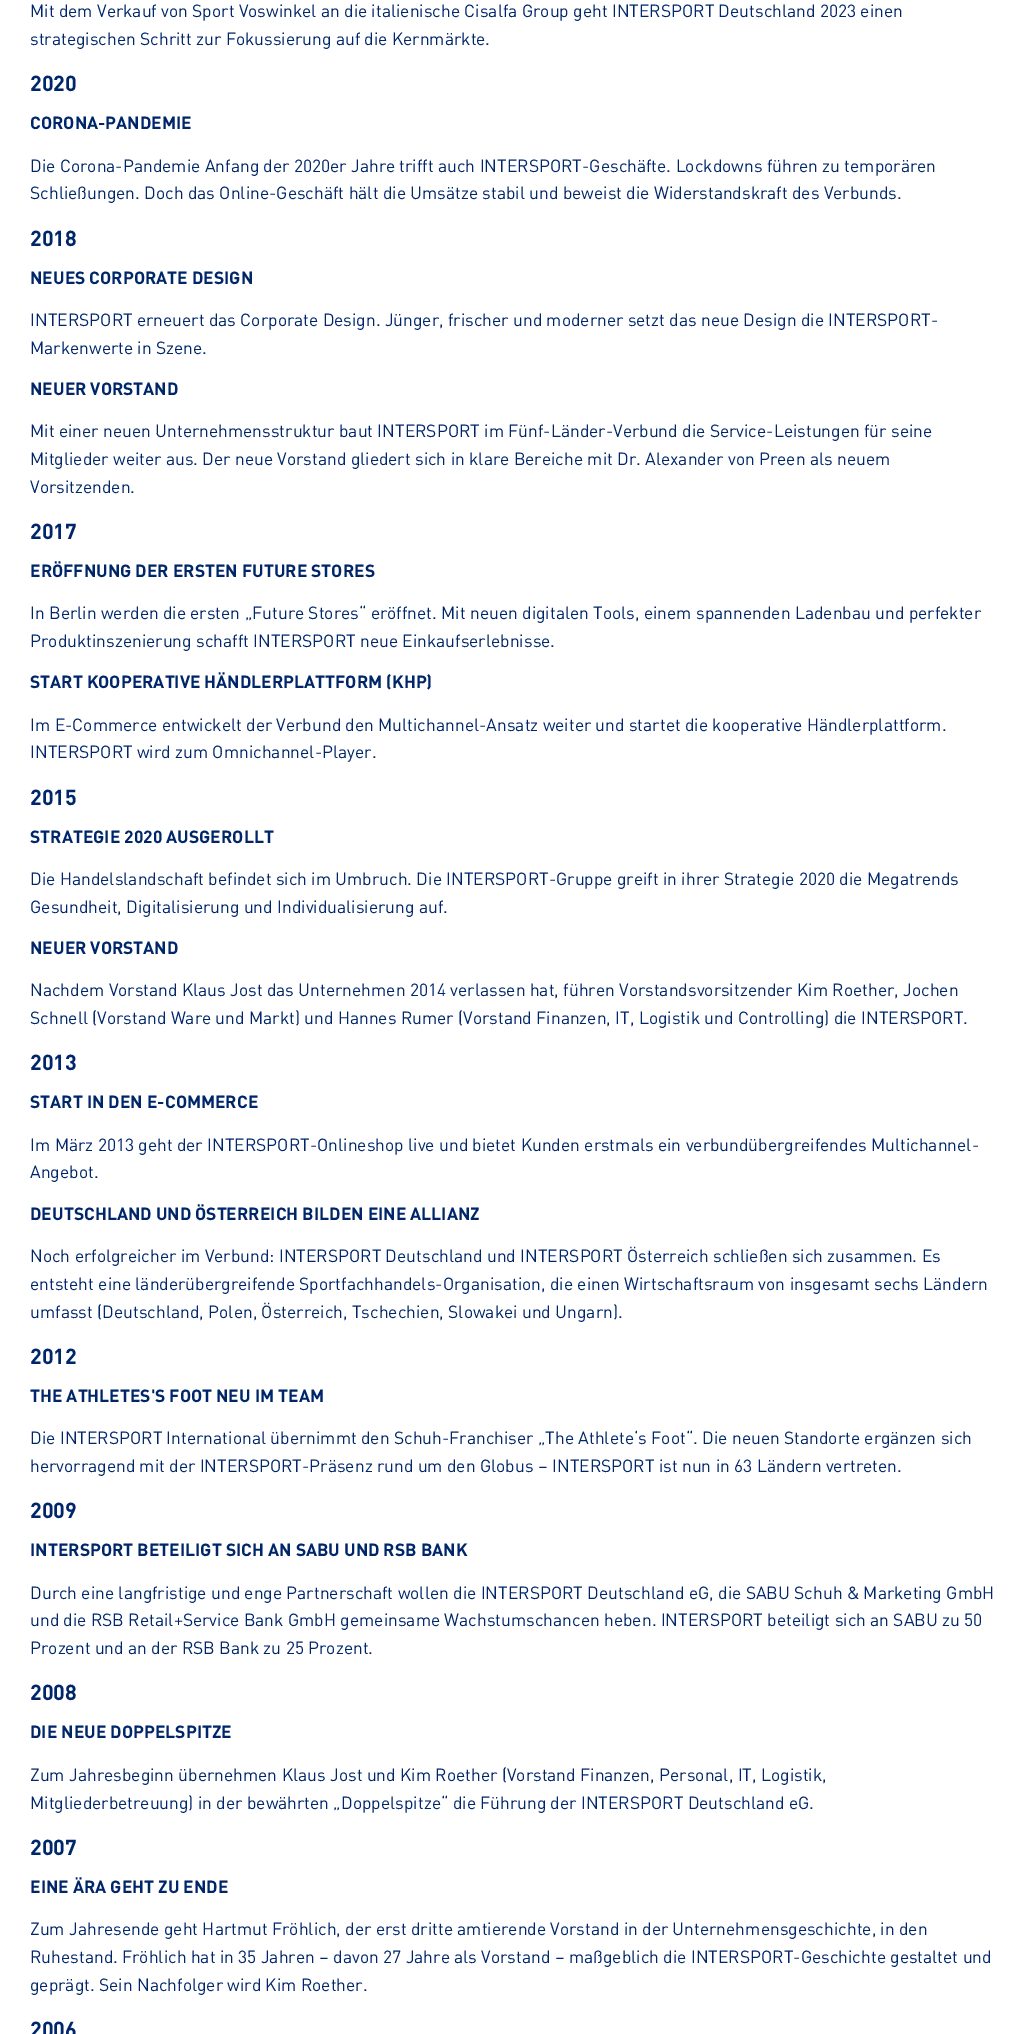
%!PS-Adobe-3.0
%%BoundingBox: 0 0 1023 2034
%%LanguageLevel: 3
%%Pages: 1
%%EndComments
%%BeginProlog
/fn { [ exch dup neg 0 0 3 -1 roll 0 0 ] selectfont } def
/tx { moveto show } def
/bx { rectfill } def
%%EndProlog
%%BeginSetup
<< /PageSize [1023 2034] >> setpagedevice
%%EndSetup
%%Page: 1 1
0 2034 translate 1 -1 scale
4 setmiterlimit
1 setgray
0 0 1023 2034 bx
/DIN-Regular 17.4 fn
0 0.149 0.416 setrgbcolor
(Mit dem Verkauf von Sport Voswinkel an die italienische Cisalfa Group geht INTERSPORT Deutschland 2023 einen) 30 17 tx
(strategischen Schritt zur Fokussierung auf die Kernmärkte.) 30 45 tx
/DIN-Bold 21.5 fn
(2020) 30 91 tx
/DIN-Bold 17.4 fn
(CORONA-PANDEMIE) 30 129 tx
/DIN-Regular 17.4 fn
(Die Corona-Pandemie Anfang der 2020er Jahre trifft auch INTERSPORT-Geschäfte. Lockdowns führen zu temporären) 30 172 tx
(Schließungen. Doch das Online-Geschäft hält die Umsätze stabil und beweist die Widerstandskraft des Verbunds.) 30 199 tx
/DIN-Bold 21.5 fn
(2018) 30 246 tx
/DIN-Bold 17.4 fn
(NEUES CORPORATE DESIGN) 30 284 tx
/DIN-Regular 17.4 fn
(INTERSPORT erneuert das Corporate Design. Jünger, frischer und moderner setzt das neue Design die INTERSPORT-) 30 326 tx
(Markenwerte in Szene.) 30 354 tx
/DIN-Bold 17.4 fn
(NEUER VORSTAND) 30 395 tx
/DIN-Regular 17.4 fn
(Mit einer neuen Unternehmensstruktur baut INTERSPORT im Fünf-Länder-Verbund die Service-Leistungen für seine) 30 437 tx
(Mitglieder weiter aus. Der neue Vorstand gliedert sich in klare Bereiche mit Dr. Alexander von Preen als neuem) 30 465 tx
(Vorsitzenden.) 30 493 tx
/DIN-Bold 21.5 fn
(2017) 30 539 tx
/DIN-Bold 17.4 fn
(ERÖFFNUNG DER ERSTEN FUTURE STORES) 30 577 tx
/DIN-Regular 17.4 fn
(In Berlin werden die ersten „Future Stores“ eröffnet. Mit neuen digitalen Tools, einem spannenden Ladenbau und perfekter) 30 619 tx
(Produktinszenierung schafft INTERSPORT neue Einkaufserlebnisse.) 30 647 tx
/DIN-Bold 17.4 fn
(START KOOPERATIVE HÄNDLERPLATTFORM \(KHP\)) 30 688 tx
/DIN-Regular 17.4 fn
(Im E-Commerce entwickelt der Verbund den Multichannel-Ansatz weiter und startet die kooperative Händlerplattform.) 30 731 tx
(INTERSPORT wird zum Omnichannel-Player.) 30 758 tx
/DIN-Bold 21.5 fn
(2015) 30 805 tx
/DIN-Bold 17.4 fn
(STRATEGIE 2020 AUSGEROLLT) 30 843 tx
/DIN-Regular 17.4 fn
(Die Handelslandschaft befindet sich im Umbruch. Die INTERSPORT-Gruppe greift in ihrer Strategie 2020 die Megatrends) 30 885 tx
(Gesundheit, Digitalisierung und Individualisierung auf.) 30 913 tx
/DIN-Bold 17.4 fn
(NEUER VORSTAND) 30 954 tx
/DIN-Regular 17.4 fn
(Nachdem Vorstand Klaus Jost das Unternehmen 2014 verlassen hat, führen Vorstandsvorsitzender Kim Roether, Jochen) 30 996 tx
(Schnell \(Vorstand Ware und Markt\) und Hannes Rumer \(Vorstand Finanzen, IT, Logistik und Controlling\) die INTERSPORT.) 30 1024 tx
/DIN-Bold 21.5 fn
(2013) 30 1070 tx
/DIN-Bold 17.4 fn
(START IN DEN E-COMMERCE) 30 1108 tx
/DIN-Regular 17.4 fn
(Im März 2013 geht der INTERSPORT-Onlineshop live und bietet Kunden erstmals ein verbundübergreifendes Multichannel-) 30 1151 tx
(Angebot.) 30 1178 tx
/DIN-Bold 17.4 fn
(DEUTSCHLAND UND ÖSTERREICH BILDEN EINE ALLIANZ) 30 1220 tx
/DIN-Regular 17.4 fn
(Noch erfolgreicher im Verbund: INTERSPORT Deutschland und INTERSPORT Österreich schließen sich zusammen. Es) 30 1262 tx
(entsteht eine länderübergreifende Sportfachhandels-Organisation, die einen Wirtschaftsraum von insgesamt sechs Ländern) 30 1290 tx
(umfasst \(Deutschland, Polen, Österreich, Tschechien, Slowakei und Ungarn\).) 30 1318 tx
/DIN-Bold 21.5 fn
(2012) 30 1364 tx
/DIN-Bold 17.4 fn
(THE ATHLETES'S FOOT NEU IM TEAM) 30 1402 tx
/DIN-Regular 17.4 fn
(Die INTERSPORT International übernimmt den Schuh-Franchiser „The Athlete‘s Foot“. Die neuen Standorte ergänzen sich) 30 1444 tx
(hervorragend mit der INTERSPORT-Präsenz rund um den Globus – INTERSPORT ist nun in 63 Ländern vertreten.) 30 1472 tx
/DIN-Bold 21.5 fn
(2009) 30 1518 tx
/DIN-Bold 17.4 fn
(INTERSPORT BETEILIGT SICH AN SABU UND RSB BANK) 30 1556 tx
/DIN-Regular 17.4 fn
(Durch eine langfristige und enge Partnerschaft wollen die INTERSPORT Deutschland eG, die SABU Schuh & Marketing GmbH) 30 1599 tx
(und die RSB Retail+Service Bank GmbH gemeinsame Wachstumschancen heben. INTERSPORT beteiligt sich an SABU zu 50) 30 1626 tx
(Prozent und an der RSB Bank zu 25 Prozent.) 30 1654 tx
/DIN-Bold 21.5 fn
(2008) 30 1700 tx
/DIN-Bold 17.4 fn
(DIE NEUE DOPPELSPITZE) 30 1738 tx
/DIN-Regular 17.4 fn
(Zum Jahresbeginn übernehmen Klaus Jost und Kim Roether \(Vorstand Finanzen, Personal, IT, Logistik,) 30 1781 tx
(Mitgliederbetreuung\) in der bewährten „Doppelspitze“ die Führung der INTERSPORT Deutschland eG.) 30 1809 tx
/DIN-Bold 21.5 fn
(2007) 30 1855 tx
/DIN-Bold 17.4 fn
(EINE ÄRA GEHT ZU ENDE) 30 1893 tx
/DIN-Regular 17.4 fn
(Zum Jahresende geht Hartmut Fröhlich, der erst dritte amtierende Vorstand in der Unternehmensgeschichte, in den) 30 1935 tx
(Ruhestand. Fröhlich hat in 35 Jahren – davon 27 Jahre als Vorstand – maßgeblich die INTERSPORT-Geschichte gestaltet und) 30 1963 tx
(geprägt. Sein Nachfolger wird Kim Roether.) 30 1991 tx
/DIN-Bold 21.5 fn
(2006) 30 2037 tx
showpage
%%EOF
